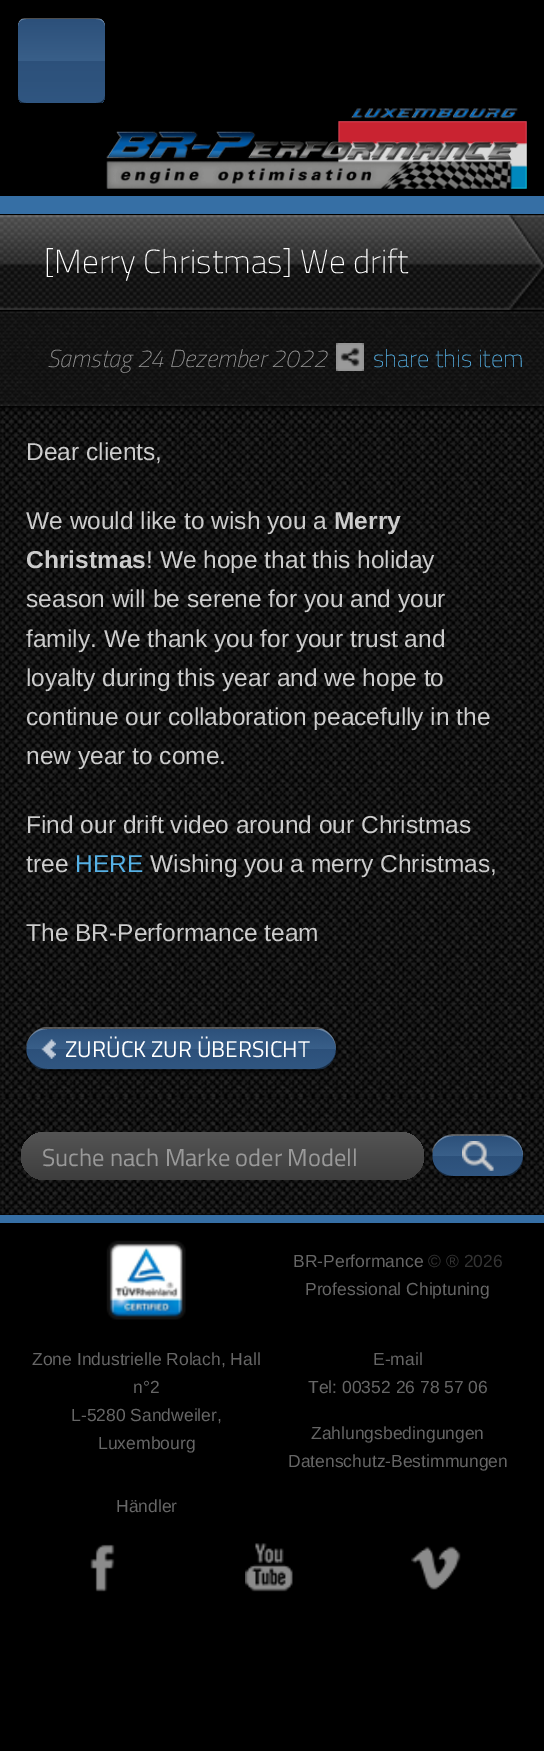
%!PS-Adobe-3.0
%%BoundingBox: 0 0 544 1751
%%LanguageLevel: 3
%%Pages: 1
%%EndComments
%%BeginProlog
/m { moveto } bind def
/l { lineto } bind def
/c { curveto } bind def
/h { closepath } bind def
/f { fill } bind def
/q { gsave } bind def
/Q { grestore } bind def
/fn { [ exch dup neg 0 0 3 -1 roll 0 0 ] selectfont } def
/tx { moveto show } def
/bx { rectfill } def
/al { dup .setfillconstantalpha .setstrokeconstantalpha } def
/rr { 5 dict begin { /r /h /w /y /x } { exch def } forall
  x r add y moveto x w add y 2 copy h add r arct x w add y h add x 1 index r arct
  x y h add x y r arct x y 2 copy exch w add exch r arct closepath end } def
/sh { 12 dict begin { /a /b /q /h /w /y /x } { exch def } forall gsave /was 0 def
  9 -2 -9 { dup b mul 4 div /e exch def 1 sub .425 mul 2.718 exch exp 1 add a .99 .min exch div /now exch def
    1 1 now sub 1 was sub div sub al /was now def
    w h .min e 2 mul add 0 gt { x e sub y e sub w e 2 mul add h e 2 mul add
      q e add b .6 mul add w h .min 2 div e add .min 0 .max rr fill } if } for grestore end } def
/im { 5 dict begin { /h /w /y /x /name } { exch def } forall
  gsave x y translate w h scale
  w h 8 [w 0 0 h 0 0] name (r) file false 3 colorimage grestore end } def
%%EndProlog
%%BeginSetup
<< /PageSize [544 1751] /PageUsesTransparency true >> setpagedevice
%%EndSetup
%%Page: 1 1
0 .pushpdf14devicefilter
0 1751 translate 1 -1 scale
4 setmiterlimit
0 setgray
0 0 544 1751 bx
q
18 18 87 87 9 rr clip newpath
q 18 19 m 105 19 l 105 103 l 18 103 l h clip newpath
<< /ShadingType 2 /ColorSpace /DeviceRGB /Coords [61 19 61 103] /Extend [true true] /Function << /FunctionType 3 /Domain [0 1] /Functions [<< /FunctionType 2 /Domain [0 1] /C0 [0.173 0.314 0.478] /C1 [0.224 0.373 0.537] /N 1 >> << /FunctionType 2 /Domain [0 1] /C0 [0.173 0.314 0.478] /C1 [0.188 0.337 0.506] /N 1 >>] /Bounds [0.5] /Encode [0 1 0 1] >> >> shfill Q
Q
0.3 al
1 setgray
26 18 m 21 18 18 21 18 26 c 18 22 21 19 26 19 c 96 19 l 101 19 105 22 105 26 c 105 21 101 18 96 18 c h f
0.5 al
0 setgray
96 105 m 101 105 105 101 105 96 c 105 100 101 103 96 103 c 26 103 l 21 103 18 100 18 96 c 18 101 21 105 26 105 c h f
1 al
(image0.raw) 106 108 421 82 im
0.212 0.435 0.647 setrgbcolor
0 196 544 18 bx
(image1.raw) 0 215 544 95 im
(image2.raw) 0 215 544 95 im
/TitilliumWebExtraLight-ExtraLight 33.25 fn
1 setgray
([Merry Christmas] We drift) 44 273 tx
(image5.raw) 0 406 544 692 im
0 setgray
0 313 544 95 0 2 1 sh
(image3.raw) 0 311 544 95 im
/TitilliumWebExtraLight-ExtraLightItalic 24.5 fn
0.6 setgray
(Samstag 24 Dezember 2022) 47 367 tx
(image4.raw) 336 343 28 28 im
/TitilliumWebExtraLight-ExtraLight 24.5 fn
0.337 0.698 0.906 setrgbcolor
(share this item) 373 367 tx
/LiberationSans-Regular 24.5 fn
0.8 setgray
(Dear clients,) 26 460 tx
(We would like to wish you a) 26 529 tx
/LiberationSans-Bold 24.5 fn
(Merry) 334 529 tx
(Christmas) 26 568 tx
/LiberationSans-Regular 24.5 fn
(! We hope that this holiday) 146 568 tx
(season will be serene for you and your) 26 607 tx
(family. We thank you for your trust and) 26 647 tx
(loyalty during this year and we hope to) 26 686 tx
(continue our collaboration peacefully in the) 26 725 tx
(new year to come.) 26 764 tx
(Find our drift video around our Christmas) 26 833 tx
(tree) 26 872 tx
0.337 0.698 0.906 setrgbcolor
(HERE) 75 872 tx
0.8 setgray
(Wishing you a merry Christmas,) 150 872 tx
(The BR-Performance team) 26 941 tx
0 setgray
28 1029 310 44 22 2.5 0.5 sh
(image6.raw) 26 1029 310 41 im
0.3 al
1 setgray
48 1029 m 37 1029 28 1036 26 1046 c 28 1036 35 1029 45 1027 c 317 1027 l 328 1029 336 1038 336 1049 c 336 1038 326 1029 314 1029 c h f
0.5 al
0 setgray
48 1071 m 314 1071 l 326 1071 336 1061 336 1049 c 336 1060 326 1069 314 1069 c 48 1069 l 37 1069 28 1062 26 1052 c 26 1062 38 1071 48 1071 c h f
/TitilliumWeb-Regular 22.75 fn
1 al
1 setgray
(ZURÜCK ZUR ÜBERSICHT) 65 1057 tx
(image7.raw) 0 1097 544 118 im
q 21 1132 403 48 24 rr clip newpath
<< /ShadingType 2 /ColorSpace /DeviceRGB /Coords [21 1132 21 1180] /Extend [true true] /Function << /FunctionType 2 /Domain [0 1] /C0 [0.329 0.329 0.329] /C1 [0.243 0.243 0.243] /N 1 >> >> shfill Q
/TitilliumWeb-Regular 24.5 fn
0.6 setgray
(Suche nach Marke oder Modell) 42 1166 tx
0 setgray
434 1136 91 44 22 2.5 0.5 sh
(image8.raw) 432 1135 91 41 im
0.3 al
1 setgray
454 1134 m 444 1134 432 1143 432 1153 c 434 1143 443 1136 454 1136 c 501 1136 l 513 1136 523 1145 523 1156 c 523 1144 513 1134 501 1134 c h f
0.5 al
0 setgray
451 1178 m 442 1176 432 1168 432 1159 c 434 1169 443 1176 454 1176 c 501 1176 l 513 1176 523 1167 523 1156 c 523 1167 515 1176 504 1178 c h f
1 al
0.212 0.435 0.647 setrgbcolor
0 1215 544 8 bx
(image9.raw) 106 1240 80 80 im
/LiberationSans-Regular 17.5 fn
0.4 setgray
(BR-Performance) 293 1267 tx
0.2 setgray
(© ® 2026) 428 1267 tx
0.4 setgray
(Professional Chiptuning) 305 1295 tx
(Zone Industrielle Rolach, Hall) 32 1365 tx
(n°2) 133 1393 tx
(L-5280 Sandweiler,) 71 1421 tx
(Luxembourg) 98 1449 tx
(E-mail) 373 1365 tx
(Tel: 00352 26 78 57 06) 308 1393 tx
(Zahlungsbedingungen) 311 1439 tx
(Datenschutz-Bestimmungen) 288 1467 tx
(Händler) 116 1512 tx
(image10.raw) 90 1544 25 48 im
(image11.raw) 245 1543 48 49 im
(image12.raw) 411 1546 50 44 im
.poppdf14devicefilter showpage
%%EOF
